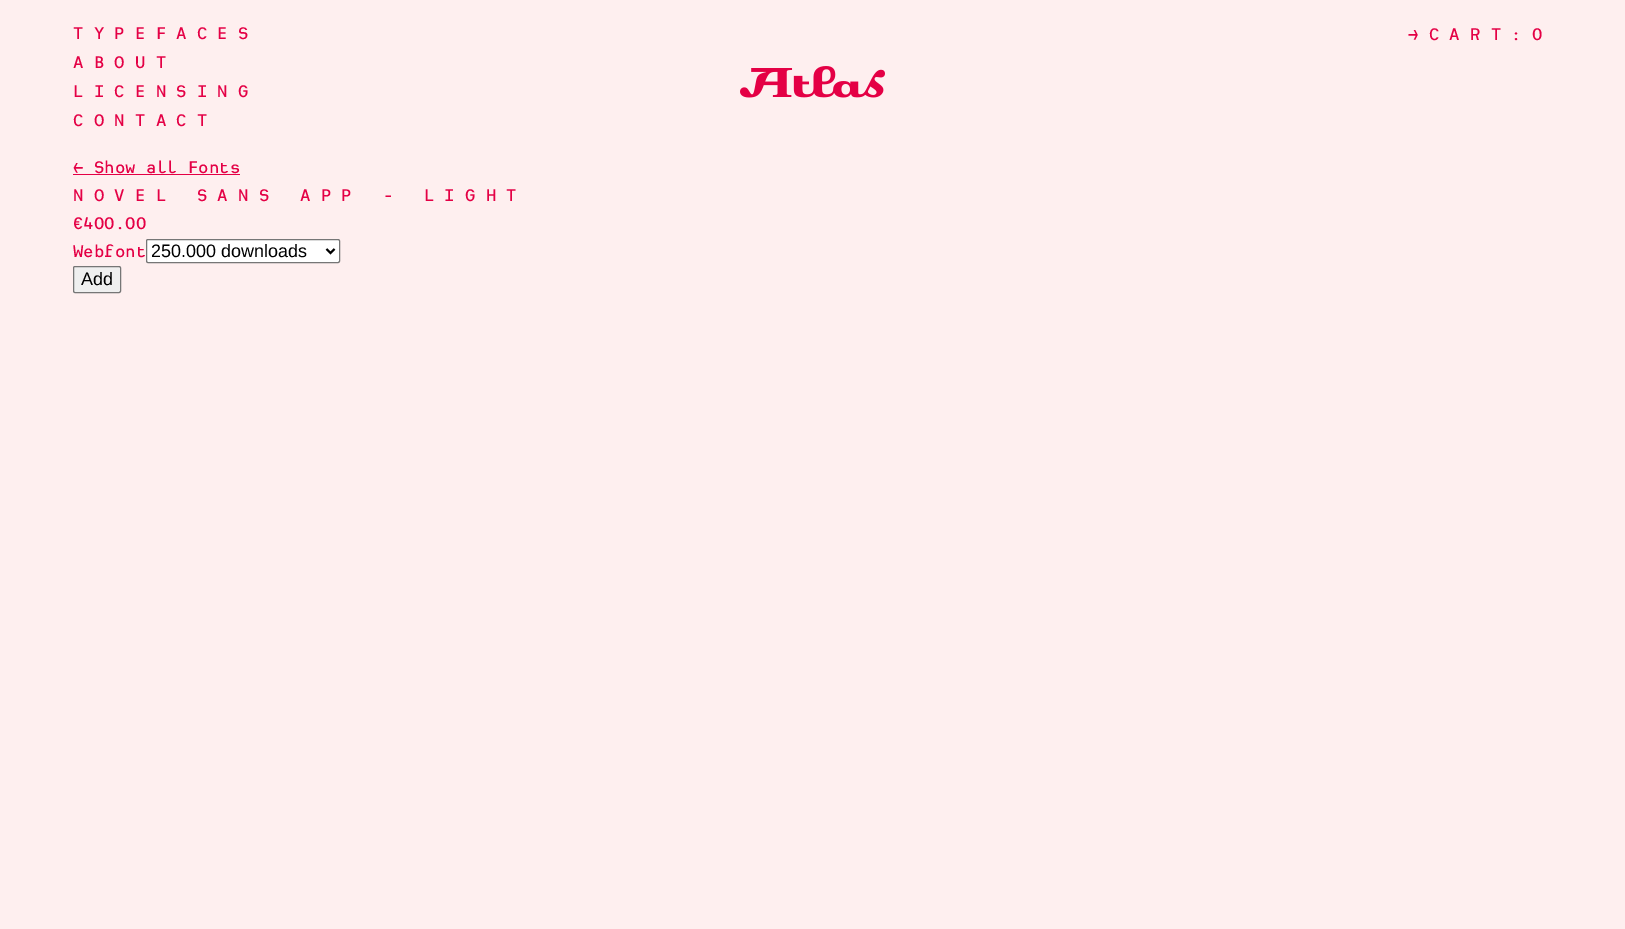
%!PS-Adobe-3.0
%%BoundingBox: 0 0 1625 929
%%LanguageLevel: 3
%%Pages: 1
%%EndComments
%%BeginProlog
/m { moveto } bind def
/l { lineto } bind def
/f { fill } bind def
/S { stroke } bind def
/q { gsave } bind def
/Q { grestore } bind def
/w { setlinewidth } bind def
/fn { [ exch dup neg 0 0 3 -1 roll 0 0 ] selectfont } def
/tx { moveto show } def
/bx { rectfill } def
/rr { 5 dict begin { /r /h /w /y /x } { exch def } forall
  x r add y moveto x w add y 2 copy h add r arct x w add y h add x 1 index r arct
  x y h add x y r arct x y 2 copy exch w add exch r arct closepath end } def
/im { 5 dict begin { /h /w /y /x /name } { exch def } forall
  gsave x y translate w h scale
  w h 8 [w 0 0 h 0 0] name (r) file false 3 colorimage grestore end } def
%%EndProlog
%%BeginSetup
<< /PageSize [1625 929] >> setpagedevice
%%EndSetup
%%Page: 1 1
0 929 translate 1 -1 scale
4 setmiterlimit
0.996 0.937 0.937 setrgbcolor
0 0 1625 929 bx
/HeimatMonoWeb-SemiBold 18 fn
0.894 0 0.271 setrgbcolor
73 39 m 10.2 0 (TYPEFACES) ashow
73 68 m 10.2 0 (ABOUT) ashow
73 97 m 10.2 0 (LICENSING) ashow
73 126 m 10.2 0 (CONTACT) ashow
1408 40 m 10.2 0 (→CART:0) ashow
(image0.raw) 740 66 145 32 im
(← Show all Fonts) 73 173 tx
73 174 167 1 bx
73 201 m 10.2 0 (NOVEL SANS APP - LIGHT) ashow
(€400.00) 73 229 tx
(Webfont) 73 257 tx
1 setgray
146.5 239.5 193 23 1.5 rr q f Q
0.463 setgray
S
0 setgray
2 w
326.5 249 m 330.5 253 l 334.5 249 l S
/LiberationSans-Regular 18 fn
(250.000 downloads) 151 257 tx
0.937 setgray
73.5 266.5 47 26 1.5 rr q f Q
0.463 setgray
1 w
S
0 setgray
(Add) 81 285 tx
showpage
%%EOF
